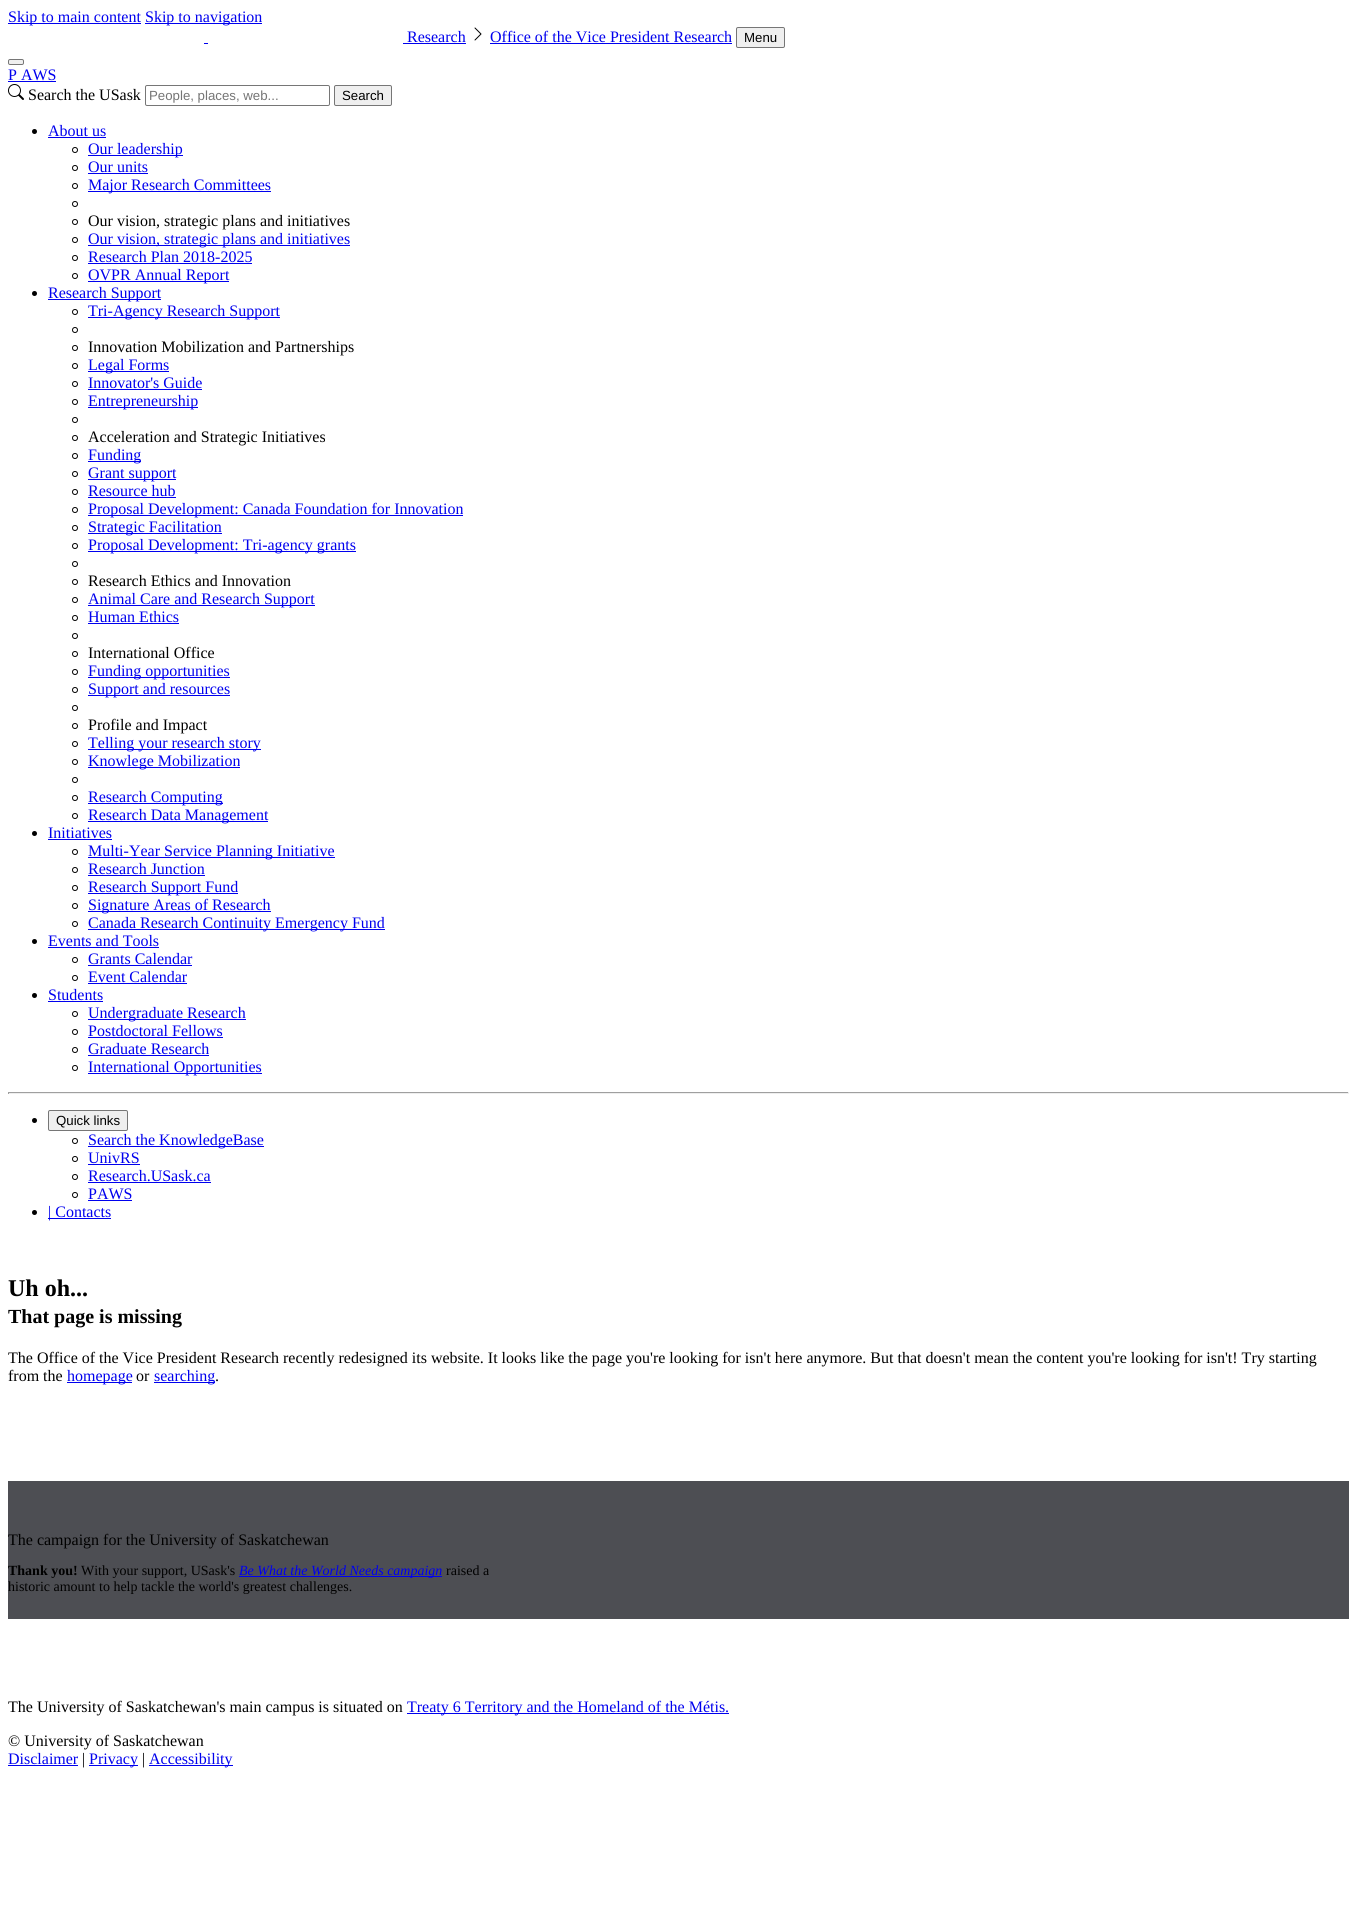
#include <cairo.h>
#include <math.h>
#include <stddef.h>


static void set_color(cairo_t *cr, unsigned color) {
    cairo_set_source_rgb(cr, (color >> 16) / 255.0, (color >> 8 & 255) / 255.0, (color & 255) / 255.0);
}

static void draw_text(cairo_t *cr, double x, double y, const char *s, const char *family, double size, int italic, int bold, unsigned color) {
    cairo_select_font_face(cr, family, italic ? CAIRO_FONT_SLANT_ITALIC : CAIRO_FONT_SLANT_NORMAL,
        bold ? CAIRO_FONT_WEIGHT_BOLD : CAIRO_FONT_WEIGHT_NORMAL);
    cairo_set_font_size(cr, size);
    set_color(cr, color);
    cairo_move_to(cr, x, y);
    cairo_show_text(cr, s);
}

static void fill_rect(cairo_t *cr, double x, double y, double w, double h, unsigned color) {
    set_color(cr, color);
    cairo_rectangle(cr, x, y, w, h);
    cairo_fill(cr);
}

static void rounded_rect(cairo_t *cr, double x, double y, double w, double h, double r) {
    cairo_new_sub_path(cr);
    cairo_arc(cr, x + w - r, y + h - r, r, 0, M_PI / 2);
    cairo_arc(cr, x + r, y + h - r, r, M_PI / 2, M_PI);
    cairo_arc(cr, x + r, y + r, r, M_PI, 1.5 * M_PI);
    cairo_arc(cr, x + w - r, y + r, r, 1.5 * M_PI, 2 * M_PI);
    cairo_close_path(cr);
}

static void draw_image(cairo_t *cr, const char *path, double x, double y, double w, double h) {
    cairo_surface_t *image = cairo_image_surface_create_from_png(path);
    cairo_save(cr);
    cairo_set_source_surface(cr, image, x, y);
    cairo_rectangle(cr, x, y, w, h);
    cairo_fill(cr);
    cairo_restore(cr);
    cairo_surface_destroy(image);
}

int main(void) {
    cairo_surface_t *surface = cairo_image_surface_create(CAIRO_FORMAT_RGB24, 1357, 1925);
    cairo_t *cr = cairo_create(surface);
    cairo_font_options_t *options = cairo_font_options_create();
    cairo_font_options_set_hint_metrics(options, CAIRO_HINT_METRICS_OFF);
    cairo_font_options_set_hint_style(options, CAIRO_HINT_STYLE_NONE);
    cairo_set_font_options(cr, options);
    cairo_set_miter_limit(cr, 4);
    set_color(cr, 0xFFFFFF);
    cairo_paint(cr);
    fill_rect(cr, 8, 23, 133, 1, 0x0000EE);
    draw_text(cr, 8, 22, "Skip to main content", "Liberation Serif", 16, 0, 0, 0x0000EE);
    fill_rect(cr, 145, 23, 117, 1, 0x0000EE);
    draw_text(cr, 145, 22, "Skip to navigation", "Liberation Serif", 16, 0, 0, 0x0000EE);
    draw_text(cr, 407, 42, "Research", "Liberation Serif", 16, 0, 0, 0x0000EE);
    draw_image(cr, "assets/img1.png", 474, 27, 8, 14);
    draw_text(cr, 490, 42, "Office of the Vice President Research", "Liberation Serif", 16, 0, 0, 0x0000EE);
    fill_rect(cr, 490, 43, 242, 1, 0x0000EE);
    set_color(cr, 0xEFEFEF);
    rounded_rect(cr, 736.5, 27.5, 48, 20, 1.5);
    cairo_fill_preserve(cr);
    set_color(cr, 0x767676);
    cairo_set_line_width(cr, 1);
    cairo_stroke(cr);
    draw_text(cr, 744, 42, "Menu", "Liberation Sans", 13.25, 0, 0, 0x000000);
    fill_rect(cr, 204, 43, 4, 1, 0x0000EE);
    fill_rect(cr, 403, 43, 63, 1, 0x0000EE);
    set_color(cr, 0xEFEFEF);
    rounded_rect(cr, 8.5, 59.5, 15, 5, 1.5);
    cairo_fill_preserve(cr);
    set_color(cr, 0x767676);
    cairo_stroke(cr);
    draw_text(cr, 8, 80, "P AWS", "Liberation Serif", 16, 0, 0, 0x0000EE);
    fill_rect(cr, 8, 81, 48, 1, 0x0000EE);
    draw_image(cr, "assets/img2.png", 8, 84, 16, 16);
    draw_text(cr, 28, 100, "Search the USask", "Liberation Serif", 16, 0, 0, 0x000000);
    rounded_rect(cr, 145.5, 85.5, 184, 20, 1.5);
    set_color(cr, 0x767676);
    cairo_stroke(cr);
    draw_text(cr, 149, 100, "People, places, web...", "Liberation Sans", 13.25, 0, 0, 0x757575);
    set_color(cr, 0xEFEFEF);
    rounded_rect(cr, 334.5, 85.5, 57, 20, 1.5);
    cairo_fill_preserve(cr);
    set_color(cr, 0x767676);
    cairo_stroke(cr);
    draw_text(cr, 342, 100, "Search", "Liberation Sans", 13.25, 0, 0, 0x000000);
    cairo_new_path(cr);
    cairo_arc(cr, 34.5, 131.5, 2.5, 0, 2 * M_PI);
    cairo_fill(cr);
    draw_text(cr, 48, 136, "About us", "Liberation Serif", 16, 0, 0, 0x0000EE);
    fill_rect(cr, 48, 137, 58, 1, 0x0000EE);
    cairo_new_path(cr);
    cairo_arc(cr, 75, 150, 2.5, 0, 2 * M_PI);
    set_color(cr, 0x000000);
    cairo_stroke(cr);
    fill_rect(cr, 88, 155, 95, 1, 0x0000EE);
    draw_text(cr, 88, 154, "Our leadership", "Liberation Serif", 16, 0, 0, 0x0000EE);
    cairo_new_path(cr);
    cairo_arc(cr, 75, 168, 2.5, 0, 2 * M_PI);
    set_color(cr, 0x000000);
    cairo_stroke(cr);
    draw_text(cr, 88, 172, "Our units", "Liberation Serif", 16, 0, 0, 0x0000EE);
    fill_rect(cr, 88, 173, 60, 1, 0x0000EE);
    cairo_new_path(cr);
    cairo_arc(cr, 75, 186, 2.5, 0, 2 * M_PI);
    set_color(cr, 0x000000);
    cairo_stroke(cr);
    fill_rect(cr, 88, 191, 183, 1, 0x0000EE);
    draw_text(cr, 88, 190, "Major Research Committees", "Liberation Serif", 16, 0, 0, 0x0000EE);
    cairo_new_path(cr);
    cairo_arc(cr, 75, 204, 2.5, 0, 2 * M_PI);
    set_color(cr, 0x000000);
    cairo_stroke(cr);
    cairo_arc(cr, 75, 222, 2.5, 0, 2 * M_PI);
    cairo_stroke(cr);
    draw_text(cr, 88, 226, "Our vision, strategic plans and initiatives", "Liberation Serif", 16, 0, 0, 0x000000);
    cairo_new_path(cr);
    cairo_arc(cr, 75, 240, 2.5, 0, 2 * M_PI);
    cairo_stroke(cr);
    fill_rect(cr, 88, 245, 262, 1, 0x0000EE);
    draw_text(cr, 88, 244, "Our vision, strategic plans and initiatives", "Liberation Serif", 16, 0, 0, 0x0000EE);
    cairo_new_path(cr);
    cairo_arc(cr, 75, 258, 2.5, 0, 2 * M_PI);
    set_color(cr, 0x000000);
    cairo_stroke(cr);
    draw_text(cr, 88, 262, "Research Plan 2018-2025", "Liberation Serif", 16, 0, 0, 0x0000EE);
    fill_rect(cr, 88, 263, 164, 1, 0x0000EE);
    cairo_new_path(cr);
    cairo_arc(cr, 75, 276, 2.5, 0, 2 * M_PI);
    set_color(cr, 0x000000);
    cairo_stroke(cr);
    fill_rect(cr, 88, 281, 141, 1, 0x0000EE);
    draw_text(cr, 88, 280, "OVPR Annual Report", "Liberation Serif", 16, 0, 0, 0x0000EE);
    set_color(cr, 0x000000);
    cairo_new_path(cr);
    cairo_arc(cr, 34.5, 293.5, 2.5, 0, 2 * M_PI);
    cairo_fill(cr);
    fill_rect(cr, 48, 299, 113, 1, 0x0000EE);
    draw_text(cr, 48, 298, "Research Support", "Liberation Serif", 16, 0, 0, 0x0000EE);
    cairo_new_path(cr);
    cairo_arc(cr, 75, 312, 2.5, 0, 2 * M_PI);
    set_color(cr, 0x000000);
    cairo_stroke(cr);
    fill_rect(cr, 88, 317, 192, 1, 0x0000EE);
    draw_text(cr, 88, 316, "Tri-Agency Research Support", "Liberation Serif", 16, 0, 0, 0x0000EE);
    cairo_new_path(cr);
    cairo_arc(cr, 75, 330, 2.5, 0, 2 * M_PI);
    set_color(cr, 0x000000);
    cairo_stroke(cr);
    cairo_arc(cr, 75, 348, 2.5, 0, 2 * M_PI);
    cairo_stroke(cr);
    draw_text(cr, 88, 352, "Innovation Mobilization and Partnerships", "Liberation Serif", 16, 0, 0, 0x000000);
    cairo_new_path(cr);
    cairo_arc(cr, 75, 366, 2.5, 0, 2 * M_PI);
    cairo_stroke(cr);
    fill_rect(cr, 88, 371, 81, 1, 0x0000EE);
    draw_text(cr, 88, 370, "Legal Forms", "Liberation Serif", 16, 0, 0, 0x0000EE);
    cairo_new_path(cr);
    cairo_arc(cr, 75, 384, 2.5, 0, 2 * M_PI);
    set_color(cr, 0x000000);
    cairo_stroke(cr);
    draw_text(cr, 88, 388, "Innovator's Guide", "Liberation Serif", 16, 0, 0, 0x0000EE);
    fill_rect(cr, 88, 389, 114, 1, 0x0000EE);
    cairo_new_path(cr);
    cairo_arc(cr, 75, 402, 2.5, 0, 2 * M_PI);
    set_color(cr, 0x000000);
    cairo_stroke(cr);
    fill_rect(cr, 88, 407, 110, 1, 0x0000EE);
    draw_text(cr, 88, 406, "Entrepreneurship", "Liberation Serif", 16, 0, 0, 0x0000EE);
    cairo_new_path(cr);
    cairo_arc(cr, 75, 420, 2.5, 0, 2 * M_PI);
    set_color(cr, 0x000000);
    cairo_stroke(cr);
    cairo_arc(cr, 75, 438, 2.5, 0, 2 * M_PI);
    cairo_stroke(cr);
    draw_text(cr, 88, 442, "Acceleration and Strategic Initiatives", "Liberation Serif", 16, 0, 0, 0x000000);
    cairo_new_path(cr);
    cairo_arc(cr, 75, 456, 2.5, 0, 2 * M_PI);
    cairo_stroke(cr);
    fill_rect(cr, 88, 461, 53, 1, 0x0000EE);
    draw_text(cr, 88, 460, "Funding", "Liberation Serif", 16, 0, 0, 0x0000EE);
    cairo_new_path(cr);
    cairo_arc(cr, 75, 474, 2.5, 0, 2 * M_PI);
    set_color(cr, 0x000000);
    cairo_stroke(cr);
    fill_rect(cr, 88, 479, 88, 1, 0x0000EE);
    draw_text(cr, 88, 478, "Grant support", "Liberation Serif", 16, 0, 0, 0x0000EE);
    cairo_new_path(cr);
    cairo_arc(cr, 75, 492, 2.5, 0, 2 * M_PI);
    set_color(cr, 0x000000);
    cairo_stroke(cr);
    draw_text(cr, 88, 496, "Resource hub", "Liberation Serif", 16, 0, 0, 0x0000EE);
    fill_rect(cr, 88, 497, 88, 1, 0x0000EE);
    cairo_new_path(cr);
    cairo_arc(cr, 75, 510, 2.5, 0, 2 * M_PI);
    set_color(cr, 0x000000);
    cairo_stroke(cr);
    fill_rect(cr, 88, 515, 375, 1, 0x0000EE);
    draw_text(cr, 88, 514, "Proposal Development: Canada Foundation for Innovation", "Liberation Serif", 16, 0, 0, 0x0000EE);
    cairo_new_path(cr);
    cairo_arc(cr, 75, 528, 2.5, 0, 2 * M_PI);
    set_color(cr, 0x000000);
    cairo_stroke(cr);
    fill_rect(cr, 88, 533, 134, 1, 0x0000EE);
    draw_text(cr, 88, 532, "Strategic Facilitation", "Liberation Serif", 16, 0, 0, 0x0000EE);
    cairo_new_path(cr);
    cairo_arc(cr, 75, 546, 2.5, 0, 2 * M_PI);
    set_color(cr, 0x000000);
    cairo_stroke(cr);
    fill_rect(cr, 88, 551, 268, 1, 0x0000EE);
    draw_text(cr, 88, 550, "Proposal Development: Tri-agency grants", "Liberation Serif", 16, 0, 0, 0x0000EE);
    cairo_new_path(cr);
    cairo_arc(cr, 75, 564, 2.5, 0, 2 * M_PI);
    set_color(cr, 0x000000);
    cairo_stroke(cr);
    cairo_arc(cr, 75, 582, 2.5, 0, 2 * M_PI);
    cairo_stroke(cr);
    draw_text(cr, 88, 586, "Research Ethics and Innovation", "Liberation Serif", 16, 0, 0, 0x000000);
    cairo_new_path(cr);
    cairo_arc(cr, 75, 600, 2.5, 0, 2 * M_PI);
    cairo_stroke(cr);
    fill_rect(cr, 88, 605, 227, 1, 0x0000EE);
    draw_text(cr, 88, 604, "Animal Care and Research Support", "Liberation Serif", 16, 0, 0, 0x0000EE);
    cairo_new_path(cr);
    cairo_arc(cr, 75, 618, 2.5, 0, 2 * M_PI);
    set_color(cr, 0x000000);
    cairo_stroke(cr);
    draw_text(cr, 88, 622, "Human Ethics", "Liberation Serif", 16, 0, 0, 0x0000EE);
    fill_rect(cr, 88, 623, 91, 1, 0x0000EE);
    cairo_new_path(cr);
    cairo_arc(cr, 75, 636, 2.5, 0, 2 * M_PI);
    set_color(cr, 0x000000);
    cairo_stroke(cr);
    cairo_arc(cr, 75, 654, 2.5, 0, 2 * M_PI);
    cairo_stroke(cr);
    draw_text(cr, 88, 658, "International Office", "Liberation Serif", 16, 0, 0, 0x000000);
    cairo_new_path(cr);
    cairo_arc(cr, 75, 672, 2.5, 0, 2 * M_PI);
    cairo_stroke(cr);
    fill_rect(cr, 88, 677, 142, 1, 0x0000EE);
    draw_text(cr, 88, 676, "Funding opportunities", "Liberation Serif", 16, 0, 0, 0x0000EE);
    cairo_new_path(cr);
    cairo_arc(cr, 75, 690, 2.5, 0, 2 * M_PI);
    set_color(cr, 0x000000);
    cairo_stroke(cr);
    fill_rect(cr, 88, 695, 142, 1, 0x0000EE);
    draw_text(cr, 88, 694, "Support and resources", "Liberation Serif", 16, 0, 0, 0x0000EE);
    cairo_new_path(cr);
    cairo_arc(cr, 75, 708, 2.5, 0, 2 * M_PI);
    set_color(cr, 0x000000);
    cairo_stroke(cr);
    cairo_arc(cr, 75, 726, 2.5, 0, 2 * M_PI);
    cairo_stroke(cr);
    draw_text(cr, 88, 730, "Profile and Impact", "Liberation Serif", 16, 0, 0, 0x000000);
    cairo_new_path(cr);
    cairo_arc(cr, 75, 744, 2.5, 0, 2 * M_PI);
    cairo_stroke(cr);
    fill_rect(cr, 88, 749, 173, 1, 0x0000EE);
    draw_text(cr, 88, 748, "Telling your research story", "Liberation Serif", 16, 0, 0, 0x0000EE);
    cairo_new_path(cr);
    cairo_arc(cr, 75, 762, 2.5, 0, 2 * M_PI);
    set_color(cr, 0x000000);
    cairo_stroke(cr);
    fill_rect(cr, 88, 767, 152, 1, 0x0000EE);
    draw_text(cr, 88, 766, "Knowlege Mobilization", "Liberation Serif", 16, 0, 0, 0x0000EE);
    cairo_new_path(cr);
    cairo_arc(cr, 75, 780, 2.5, 0, 2 * M_PI);
    set_color(cr, 0x000000);
    cairo_stroke(cr);
    cairo_arc(cr, 75, 798, 2.5, 0, 2 * M_PI);
    cairo_stroke(cr);
    fill_rect(cr, 88, 803, 135, 1, 0x0000EE);
    draw_text(cr, 88, 802, "Research Computing", "Liberation Serif", 16, 0, 0, 0x0000EE);
    cairo_new_path(cr);
    cairo_arc(cr, 75, 816, 2.5, 0, 2 * M_PI);
    set_color(cr, 0x000000);
    cairo_stroke(cr);
    fill_rect(cr, 88, 821, 180, 1, 0x0000EE);
    draw_text(cr, 88, 820, "Research Data Management", "Liberation Serif", 16, 0, 0, 0x0000EE);
    set_color(cr, 0x000000);
    cairo_new_path(cr);
    cairo_arc(cr, 34.5, 833.5, 2.5, 0, 2 * M_PI);
    cairo_fill(cr);
    draw_text(cr, 48, 838, "Initiatives", "Liberation Serif", 16, 0, 0, 0x0000EE);
    fill_rect(cr, 48, 839, 64, 1, 0x0000EE);
    cairo_new_path(cr);
    cairo_arc(cr, 75, 852, 2.5, 0, 2 * M_PI);
    set_color(cr, 0x000000);
    cairo_stroke(cr);
    fill_rect(cr, 88, 857, 247, 1, 0x0000EE);
    draw_text(cr, 88, 856, "Multi-Year Service Planning Initiative", "Liberation Serif", 16, 0, 0, 0x0000EE);
    cairo_new_path(cr);
    cairo_arc(cr, 75, 870, 2.5, 0, 2 * M_PI);
    set_color(cr, 0x000000);
    cairo_stroke(cr);
    draw_text(cr, 88, 874, "Research Junction", "Liberation Serif", 16, 0, 0, 0x0000EE);
    fill_rect(cr, 88, 875, 117, 1, 0x0000EE);
    cairo_new_path(cr);
    cairo_arc(cr, 75, 888, 2.5, 0, 2 * M_PI);
    set_color(cr, 0x000000);
    cairo_stroke(cr);
    fill_rect(cr, 88, 893, 150, 1, 0x0000EE);
    draw_text(cr, 88, 892, "Research Support Fund", "Liberation Serif", 16, 0, 0, 0x0000EE);
    cairo_new_path(cr);
    cairo_arc(cr, 75, 906, 2.5, 0, 2 * M_PI);
    set_color(cr, 0x000000);
    cairo_stroke(cr);
    fill_rect(cr, 88, 911, 183, 1, 0x0000EE);
    draw_text(cr, 88, 910, "Signature Areas of Research", "Liberation Serif", 16, 0, 0, 0x0000EE);
    cairo_new_path(cr);
    cairo_arc(cr, 75, 924, 2.5, 0, 2 * M_PI);
    set_color(cr, 0x000000);
    cairo_stroke(cr);
    fill_rect(cr, 88, 929, 297, 1, 0x0000EE);
    draw_text(cr, 88, 928, "Canada Research Continuity Emergency Fund", "Liberation Serif", 16, 0, 0, 0x0000EE);
    set_color(cr, 0x000000);
    cairo_new_path(cr);
    cairo_arc(cr, 34.5, 941.5, 2.5, 0, 2 * M_PI);
    cairo_fill(cr);
    draw_text(cr, 48, 946, "Events and Tools", "Liberation Serif", 16, 0, 0, 0x0000EE);
    fill_rect(cr, 48, 947, 111, 1, 0x0000EE);
    cairo_new_path(cr);
    cairo_arc(cr, 75, 960, 2.5, 0, 2 * M_PI);
    set_color(cr, 0x000000);
    cairo_stroke(cr);
    draw_text(cr, 88, 964, "Grants Calendar", "Liberation Serif", 16, 0, 0, 0x0000EE);
    fill_rect(cr, 88, 965, 104, 1, 0x0000EE);
    cairo_new_path(cr);
    cairo_arc(cr, 75, 978, 2.5, 0, 2 * M_PI);
    set_color(cr, 0x000000);
    cairo_stroke(cr);
    draw_text(cr, 88, 982, "Event Calendar", "Liberation Serif", 16, 0, 0, 0x0000EE);
    fill_rect(cr, 88, 983, 99, 1, 0x0000EE);
    set_color(cr, 0x000000);
    cairo_new_path(cr);
    cairo_arc(cr, 34.5, 995.5, 2.5, 0, 2 * M_PI);
    cairo_fill(cr);
    draw_text(cr, 48, 1000, "Students", "Liberation Serif", 16, 0, 0, 0x0000EE);
    fill_rect(cr, 48, 1001, 55, 1, 0x0000EE);
    cairo_new_path(cr);
    cairo_arc(cr, 75, 1014, 2.5, 0, 2 * M_PI);
    set_color(cr, 0x000000);
    cairo_stroke(cr);
    fill_rect(cr, 88, 1019, 158, 1, 0x0000EE);
    draw_text(cr, 88, 1018, "Undergraduate Research", "Liberation Serif", 16, 0, 0, 0x0000EE);
    cairo_new_path(cr);
    cairo_arc(cr, 75, 1032, 2.5, 0, 2 * M_PI);
    set_color(cr, 0x000000);
    cairo_stroke(cr);
    draw_text(cr, 88, 1036, "Postdoctoral Fellows", "Liberation Serif", 16, 0, 0, 0x0000EE);
    fill_rect(cr, 88, 1037, 135, 1, 0x0000EE);
    cairo_new_path(cr);
    cairo_arc(cr, 75, 1050, 2.5, 0, 2 * M_PI);
    set_color(cr, 0x000000);
    cairo_stroke(cr);
    draw_text(cr, 88, 1054, "Graduate Research", "Liberation Serif", 16, 0, 0, 0x0000EE);
    fill_rect(cr, 88, 1055, 121, 1, 0x0000EE);
    cairo_new_path(cr);
    cairo_arc(cr, 75, 1068, 2.5, 0, 2 * M_PI);
    set_color(cr, 0x000000);
    cairo_stroke(cr);
    fill_rect(cr, 88, 1073, 174, 1, 0x0000EE);
    draw_text(cr, 88, 1072, "International Opportunities", "Liberation Serif", 16, 0, 0, 0x0000EE);
    fill_rect(cr, 8, 1092, 1341, 1, 0x9F9F9F);
    fill_rect(cr, 1348, 1092, 1, 2, 0xEEEEEE);
    fill_rect(cr, 8, 1093, 1341, 1, 0xEEEEEE);
    fill_rect(cr, 8, 1092, 1, 2, 0x9F9F9F);
    set_color(cr, 0x000000);
    cairo_new_path(cr);
    cairo_arc(cr, 34.5, 1120.5, 2.5, 0, 2 * M_PI);
    cairo_fill(cr);
    set_color(cr, 0xEFEFEF);
    rounded_rect(cr, 48.5, 1110.5, 79, 20, 1.5);
    cairo_fill_preserve(cr);
    set_color(cr, 0x767676);
    cairo_stroke(cr);
    draw_text(cr, 56, 1125, "Quick links", "Liberation Sans", 13.25, 0, 0, 0x000000);
    cairo_new_path(cr);
    cairo_arc(cr, 75, 1141, 2.5, 0, 2 * M_PI);
    cairo_stroke(cr);
    fill_rect(cr, 88, 1146, 176, 1, 0x0000EE);
    draw_text(cr, 88, 1145, "Search the KnowledgeBase", "Liberation Serif", 16, 0, 0, 0x0000EE);
    cairo_new_path(cr);
    cairo_arc(cr, 75, 1159, 2.5, 0, 2 * M_PI);
    set_color(cr, 0x000000);
    cairo_stroke(cr);
    draw_text(cr, 88, 1163, "UnivRS", "Liberation Serif", 16, 0, 0, 0x0000EE);
    fill_rect(cr, 88, 1164, 52, 1, 0x0000EE);
    cairo_new_path(cr);
    cairo_arc(cr, 75, 1177, 2.5, 0, 2 * M_PI);
    set_color(cr, 0x000000);
    cairo_stroke(cr);
    draw_text(cr, 88, 1181, "Research.USask.ca", "Liberation Serif", 16, 0, 0, 0x0000EE);
    fill_rect(cr, 88, 1182, 123, 1, 0x0000EE);
    cairo_new_path(cr);
    cairo_arc(cr, 75, 1195, 2.5, 0, 2 * M_PI);
    set_color(cr, 0x000000);
    cairo_stroke(cr);
    draw_text(cr, 88, 1199, "PAWS", "Liberation Serif", 16, 0, 0, 0x0000EE);
    fill_rect(cr, 88, 1200, 44, 1, 0x0000EE);
    set_color(cr, 0x000000);
    cairo_new_path(cr);
    cairo_arc(cr, 34.5, 1212.5, 2.5, 0, 2 * M_PI);
    cairo_fill(cr);
    fill_rect(cr, 48, 1218, 63, 1, 0x0000EE);
    draw_text(cr, 48, 1217, "| Contacts", "Liberation Serif", 16, 0, 0, 0x0000EE);
    draw_text(cr, 8, 1296, "Uh oh...", "Liberation Serif", 24, 0, 1, 0x000000);
    draw_text(cr, 8, 1323, "That page is missing", "Liberation Serif", 20, 0, 1, 0x000000);
    draw_text(cr, 8, 1363, "The Office of the Vice President Research recently redesigned its website. It looks like the page you're looking for isn't here anymore. But that doesn't mean the content you're looking for isn't! Try starting", "Liberation Serif", 16, 0, 0, 0x000000);
    draw_text(cr, 8, 1381, "from the", "Liberation Serif", 16, 0, 0, 0x000000);
    fill_rect(cr, 67, 1382, 65, 1, 0x0000EE);
    draw_text(cr, 67, 1381, "homepage", "Liberation Serif", 16, 0, 0, 0x0000EE);
    draw_text(cr, 136, 1381, "or", "Liberation Serif", 16, 0, 0, 0x000000);
    fill_rect(cr, 154, 1382, 61, 1, 0x0000EE);
    draw_text(cr, 154, 1381, "searching", "Liberation Serif", 16, 0, 0, 0x0000EE);
    draw_text(cr, 215, 1381, ".", "Liberation Serif", 16, 0, 0, 0x000000);
    fill_rect(cr, 8, 1481, 1341, 138, 0x4D4E53);
    draw_text(cr, 8, 1545, "The campaign for the University of Saskatchewan", "Liberation Serif", 16, 0, 0, 0x000000);
    draw_text(cr, 8, 1575, "Thank you!", "Liberation Serif", 14, 0, 1, 0x000000);
    draw_text(cr, 81, 1575, "With your support, USask's", "Liberation Serif", 14, 0, 0, 0x000000);
    fill_rect(cr, 239, 1576, 203, 1, 0x0000EE);
    draw_text(cr, 239, 1575, "Be What the World Needs campaign", "Liberation Serif", 14, 1, 0, 0x0000EE);
    draw_text(cr, 446, 1575, "raised a", "Liberation Serif", 14, 0, 0, 0x000000);
    draw_text(cr, 8, 1591, "historic amount to help tackle the world's greatest challenges.", "Liberation Serif", 14, 0, 0, 0x000000);
    draw_text(cr, 8, 1712, "The University of Saskatchewan's main campus is situated on", "Liberation Serif", 16, 0, 0, 0x000000);
    fill_rect(cr, 407, 1713, 322, 1, 0x0000EE);
    draw_text(cr, 407, 1712, "Treaty 6 Territory and the Homeland of the Métis.", "Liberation Serif", 16, 0, 0, 0x0000EE);
    draw_text(cr, 8, 1746, "© University of Saskatchewan", "Liberation Serif", 16, 0, 0, 0x000000);
    draw_text(cr, 8, 1764, "Disclaimer", "Liberation Serif", 16, 0, 0, 0x0000EE);
    fill_rect(cr, 8, 1765, 70, 1, 0x0000EE);
    draw_text(cr, 82, 1764, "|", "Liberation Serif", 16, 0, 0, 0x000000);
    fill_rect(cr, 89, 1765, 49, 1, 0x0000EE);
    draw_text(cr, 89, 1764, "Privacy", "Liberation Serif", 16, 0, 0, 0x0000EE);
    draw_text(cr, 142, 1764, "|", "Liberation Serif", 16, 0, 0, 0x000000);
    fill_rect(cr, 149, 1765, 84, 1, 0x0000EE);
    draw_text(cr, 149, 1764, "Accessibility", "Liberation Serif", 16, 0, 0, 0x0000EE);
    cairo_surface_write_to_png(surface, "output.png");
    cairo_font_options_destroy(options);
    cairo_destroy(cr);
    cairo_surface_destroy(surface);
    return 0;
}
